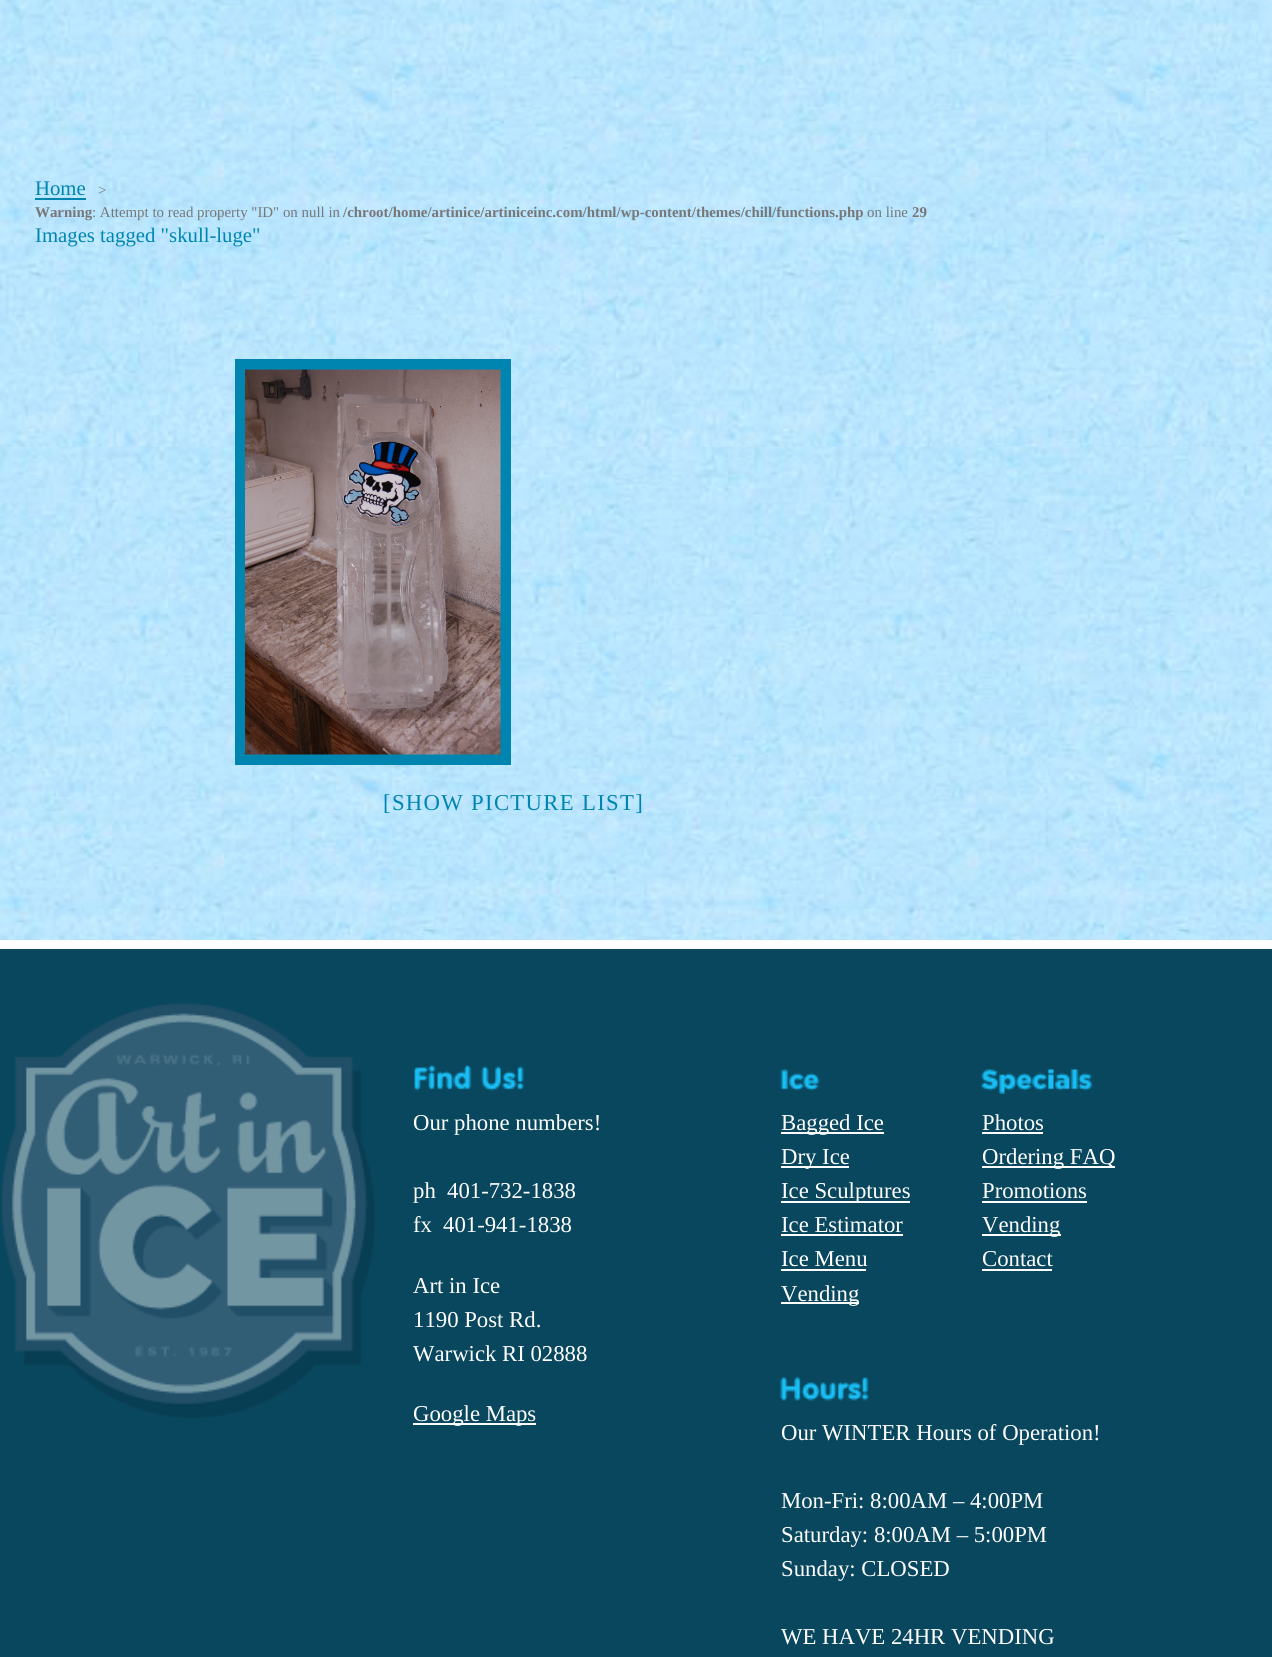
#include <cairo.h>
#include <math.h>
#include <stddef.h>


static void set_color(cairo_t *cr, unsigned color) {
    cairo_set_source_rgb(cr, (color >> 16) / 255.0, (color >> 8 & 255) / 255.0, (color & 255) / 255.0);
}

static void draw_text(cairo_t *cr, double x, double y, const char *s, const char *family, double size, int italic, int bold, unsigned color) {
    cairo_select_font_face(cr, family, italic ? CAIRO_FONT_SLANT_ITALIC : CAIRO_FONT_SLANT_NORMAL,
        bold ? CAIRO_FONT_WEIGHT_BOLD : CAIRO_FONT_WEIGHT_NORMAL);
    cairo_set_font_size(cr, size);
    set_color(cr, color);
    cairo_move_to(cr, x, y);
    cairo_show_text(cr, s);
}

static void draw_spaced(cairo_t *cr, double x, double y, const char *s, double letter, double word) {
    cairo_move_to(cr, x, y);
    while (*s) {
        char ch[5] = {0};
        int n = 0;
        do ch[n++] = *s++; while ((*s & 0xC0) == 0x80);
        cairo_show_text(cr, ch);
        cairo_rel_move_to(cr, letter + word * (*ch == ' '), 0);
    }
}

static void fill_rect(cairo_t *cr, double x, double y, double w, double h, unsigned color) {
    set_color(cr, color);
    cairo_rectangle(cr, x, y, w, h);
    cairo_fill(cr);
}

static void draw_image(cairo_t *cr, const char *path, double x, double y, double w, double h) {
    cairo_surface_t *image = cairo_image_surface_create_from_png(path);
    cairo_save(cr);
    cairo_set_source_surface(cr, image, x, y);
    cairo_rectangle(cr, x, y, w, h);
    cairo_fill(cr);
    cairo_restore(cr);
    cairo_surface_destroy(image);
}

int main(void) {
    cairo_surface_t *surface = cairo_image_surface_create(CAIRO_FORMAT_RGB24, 1272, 1657);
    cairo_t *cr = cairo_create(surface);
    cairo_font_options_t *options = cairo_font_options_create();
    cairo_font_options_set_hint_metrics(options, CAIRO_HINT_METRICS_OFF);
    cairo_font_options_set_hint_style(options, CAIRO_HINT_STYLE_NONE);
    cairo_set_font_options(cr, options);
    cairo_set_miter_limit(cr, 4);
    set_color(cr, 0xFFFFFF);
    cairo_paint(cr);
    draw_image(cr, "assets/img1.png", 0, 0, 1272, 940);
    draw_text(cr, 35, 195, "Home", "Liberation Serif", 20.75, 0, 0, 0x0085B0);
    fill_rect(cr, 35, 198, 51, 2, 0x0085B0);
    draw_text(cr, 98, 195, ">", "Liberation Serif", 14.9, 0, 0, 0x777777);
    draw_text(cr, 35, 217, "Warning", "Liberation Serif", 14.9, 0, 1, 0x777777);
    draw_text(cr, 92, 217, ": Attempt to read property \"ID\" on null in", "Liberation Serif", 14.9, 0, 0, 0x777777);
    draw_text(cr, 343, 217, "/chroot/home/artinice/artiniceinc.com/html/wp-content/themes/chill/functions.php", "Liberation Serif", 14.9, 0, 1, 0x777777);
    draw_text(cr, 867, 217, "on line", "Liberation Serif", 14.9, 0, 0, 0x777777);
    draw_text(cr, 912, 217, "29", "Liberation Serif", 14.9, 0, 1, 0x777777);
    draw_text(cr, 35, 242, "Images tagged \"skull-luge\"", "Liberation Serif", 20.75, 0, 0, 0x0085B0);
    cairo_rectangle(cr, 240.5, 364.5, 265, 395);
    cairo_set_line_width(cr, 11);
    cairo_stroke(cr);
    draw_image(cr, "assets/img2.png", 245, 369, 256, 386);
    cairo_set_font_size(cr, 22.75);
    draw_spaced(cr, 383, 810, "[SHOW PICTURE LIST]", 1.3, 0);
    fill_rect(cr, 0, 949, 1272, 708, 0x09475E);
    draw_image(cr, "assets/img3.png", 1, 1003, 374, 415);
    draw_image(cr, "assets/img4.png", 414, 1065, 110, 26);
    draw_text(cr, 413, 1130, "Our phone numbers!", "Liberation Serif", 22.75, 0, 0, 0xFFFFFF);
    draw_text(cr, 413, 1198, "ph", "Liberation Serif", 22.75, 0, 0, 0xFFFFFF);
    draw_text(cr, 447, 1198, "401-732-1838", "Liberation Serif", 22.75, 0, 0, 0xFFFFFF);
    draw_text(cr, 413, 1232, "fx", "Liberation Serif", 22.75, 0, 0, 0xFFFFFF);
    draw_text(cr, 443, 1232, "401-941-1838", "Liberation Serif", 22.75, 0, 0, 0xFFFFFF);
    draw_text(cr, 413, 1293, "Art in Ice", "Liberation Serif", 22.75, 0, 0, 0xFFFFFF);
    draw_text(cr, 413, 1327, "1190 Post Rd.", "Liberation Serif", 22.75, 0, 0, 0xFFFFFF);
    draw_text(cr, 413, 1361, "Warwick RI 02888", "Liberation Serif", 22.75, 0, 0, 0xFFFFFF);
    fill_rect(cr, 413, 1423, 123, 2, 0xFFFFFF);
    draw_text(cr, 413, 1421, "Google Maps", "Liberation Serif", 22.75, 0, 0, 0xFFFFFF);
    draw_image(cr, "assets/img5.png", 780, 1069, 40, 22);
    fill_rect(cr, 781, 1132, 103, 2, 0xFFFFFF);
    draw_text(cr, 781, 1130, "Bagged Ice", "Liberation Serif", 22.75, 0, 0, 0xFFFFFF);
    fill_rect(cr, 781, 1166, 68, 2, 0xFFFFFF);
    draw_text(cr, 781, 1164, "Dry Ice", "Liberation Serif", 22.75, 0, 0, 0xFFFFFF);
    fill_rect(cr, 781, 1201, 129, 2, 0xFFFFFF);
    draw_text(cr, 781, 1198, "Ice Sculptures", "Liberation Serif", 22.75, 0, 0, 0xFFFFFF);
    draw_text(cr, 781, 1232, "Ice Estimator", "Liberation Serif", 22.75, 0, 0, 0xFFFFFF);
    fill_rect(cr, 781, 1234, 122, 2, 0xFFFFFF);
    draw_text(cr, 781, 1266, "Ice Menu", "Liberation Serif", 22.75, 0, 0, 0xFFFFFF);
    fill_rect(cr, 781, 1269, 85, 2, 0xFFFFFF);
    fill_rect(cr, 781, 1302, 78, 2, 0xFFFFFF);
    draw_text(cr, 781, 1301, "Vending", "Liberation Serif", 22.75, 0, 0, 0xFFFFFF);
    draw_image(cr, "assets/img6.png", 981, 1069, 112, 25);
    draw_text(cr, 982, 1130, "Photos", "Liberation Serif", 22.75, 0, 0, 0xFFFFFF);
    fill_rect(cr, 982, 1132, 61, 2, 0xFFFFFF);
    fill_rect(cr, 982, 1166, 133, 2, 0xFFFFFF);
    draw_text(cr, 982, 1164, "Ordering FAQ", "Liberation Serif", 22.75, 0, 0, 0xFFFFFF);
    draw_text(cr, 982, 1198, "Promotions", "Liberation Serif", 22.75, 0, 0, 0xFFFFFF);
    fill_rect(cr, 982, 1201, 105, 2, 0xFFFFFF);
    fill_rect(cr, 982, 1234, 79, 2, 0xFFFFFF);
    draw_text(cr, 982, 1232, "Vending", "Liberation Serif", 22.75, 0, 0, 0xFFFFFF);
    draw_text(cr, 982, 1266, "Contact", "Liberation Serif", 22.75, 0, 0, 0xFFFFFF);
    fill_rect(cr, 982, 1269, 70, 2, 0xFFFFFF);
    draw_image(cr, "assets/img7.png", 780, 1377, 89, 24);
    draw_text(cr, 781, 1440, "Our WINTER Hours of Operation!", "Liberation Serif", 22.75, 0, 0, 0xFFFFFF);
    draw_text(cr, 781, 1508, "Mon-Fri: 8:00AM – 4:00PM", "Liberation Serif", 22.75, 0, 0, 0xFFFFFF);
    draw_text(cr, 781, 1542, "Saturday: 8:00AM – 5:00PM", "Liberation Serif", 22.75, 0, 0, 0xFFFFFF);
    draw_text(cr, 781, 1576, "Sunday: CLOSED", "Liberation Serif", 22.75, 0, 0, 0xFFFFFF);
    draw_text(cr, 781, 1644, "WE HAVE 24HR VENDING", "Liberation Serif", 22.75, 0, 0, 0xFFFFFF);
    cairo_surface_write_to_png(surface, "output.png");
    cairo_font_options_destroy(options);
    cairo_destroy(cr);
    cairo_surface_destroy(surface);
    return 0;
}
